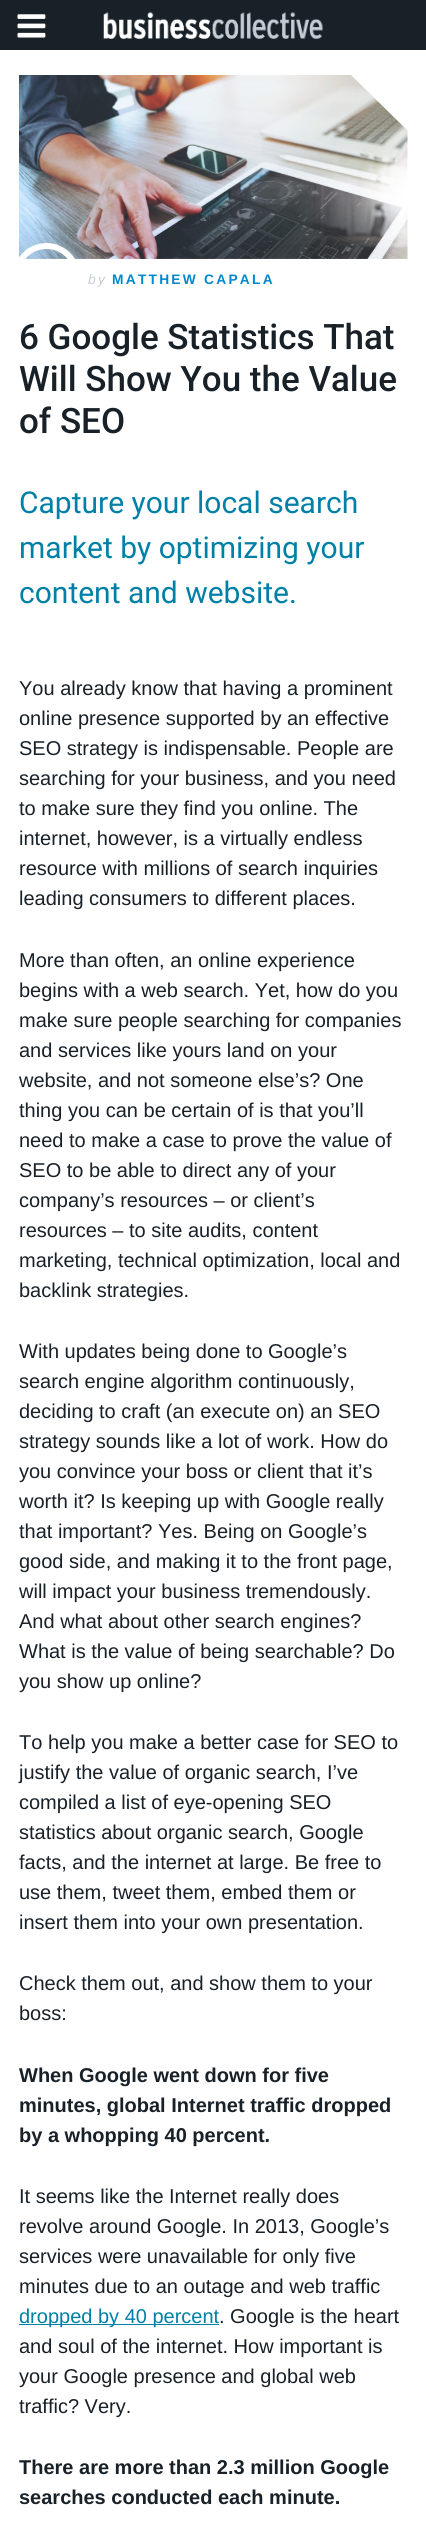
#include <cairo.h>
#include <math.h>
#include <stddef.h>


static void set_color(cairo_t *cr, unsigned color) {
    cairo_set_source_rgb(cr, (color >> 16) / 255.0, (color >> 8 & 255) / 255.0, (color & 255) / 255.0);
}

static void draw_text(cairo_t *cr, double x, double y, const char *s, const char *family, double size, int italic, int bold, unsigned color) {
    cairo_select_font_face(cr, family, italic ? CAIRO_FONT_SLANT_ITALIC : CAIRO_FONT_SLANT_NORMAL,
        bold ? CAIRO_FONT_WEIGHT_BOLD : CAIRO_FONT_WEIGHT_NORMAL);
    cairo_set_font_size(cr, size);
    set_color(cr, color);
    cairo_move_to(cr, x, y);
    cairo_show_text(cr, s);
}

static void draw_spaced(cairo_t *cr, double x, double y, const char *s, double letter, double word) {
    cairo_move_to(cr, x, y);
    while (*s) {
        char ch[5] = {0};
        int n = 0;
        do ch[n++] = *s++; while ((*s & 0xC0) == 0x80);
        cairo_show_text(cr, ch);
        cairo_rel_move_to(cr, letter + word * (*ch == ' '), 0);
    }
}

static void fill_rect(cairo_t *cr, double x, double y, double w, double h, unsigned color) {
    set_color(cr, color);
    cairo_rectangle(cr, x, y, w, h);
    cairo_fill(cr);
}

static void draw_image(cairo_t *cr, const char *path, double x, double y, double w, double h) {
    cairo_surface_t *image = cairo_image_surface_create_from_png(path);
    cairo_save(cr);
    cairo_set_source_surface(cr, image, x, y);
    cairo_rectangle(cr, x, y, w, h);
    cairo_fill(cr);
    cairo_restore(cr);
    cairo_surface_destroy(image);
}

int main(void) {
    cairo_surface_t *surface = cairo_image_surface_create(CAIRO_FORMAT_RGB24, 426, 2521);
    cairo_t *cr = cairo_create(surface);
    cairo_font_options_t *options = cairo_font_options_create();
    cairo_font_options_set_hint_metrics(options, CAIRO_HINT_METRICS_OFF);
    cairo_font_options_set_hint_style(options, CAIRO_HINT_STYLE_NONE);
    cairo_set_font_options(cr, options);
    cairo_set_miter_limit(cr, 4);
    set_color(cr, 0xFFFFFF);
    cairo_paint(cr);
    fill_rect(cr, 0, 0, 426, 50, 0x182028);
    draw_image(cr, "assets/img1.png", 17, 14, 29, 24);
    draw_image(cr, "assets/img2.png", 103, 12, 220, 27);
    draw_image(cr, "assets/img3.png", 19, 75, 389, 184);
    set_color(cr, 0xFFFFFF);
    cairo_new_path(cr);
    cairo_move_to(cr, 351, 75);
    cairo_line_to(cr, 408, 75);
    cairo_line_to(cr, 408, 131);
    cairo_close_path(cr);
    cairo_fill(cr);
    cairo_arc(cr, 46.5, 276.5, 30.5, 0, 2 * M_PI);
    cairo_set_line_width(cr, 6);
    cairo_stroke(cr);
    cairo_select_font_face(cr, "Liberation Sans", CAIRO_FONT_SLANT_ITALIC, CAIRO_FONT_WEIGHT_NORMAL);
    cairo_set_font_size(cr, 13.75);
    set_color(cr, 0xC4CDD6);
    draw_spaced(cr, 88, 284, "by", 2.25, 0);
    cairo_select_font_face(cr, "Liberation Sans", CAIRO_FONT_SLANT_NORMAL, CAIRO_FONT_WEIGHT_BOLD);
    set_color(cr, 0x0088CC);
    draw_spaced(cr, 112, 284, "MATTHEW CAPALA", 2.25, 0);
    draw_text(cr, 19, 349, "6 Google Statistics That", "Roboto Medium", 35, 0, 0, 0x182028);
    draw_text(cr, 19, 391, "Will Show You the Value", "Roboto Medium", 35, 0, 0, 0x182028);
    draw_text(cr, 19, 433, "of SEO", "Roboto Medium", 35, 0, 0, 0x182028);
    draw_text(cr, 19, 513, "Capture your local search", "Roboto", 30, 0, 0, 0x0080A7);
    draw_text(cr, 19, 558, "market by optimizing your", "Roboto", 30, 0, 0, 0x0080A7);
    draw_text(cr, 19, 603, "content and website.", "Roboto", 30, 0, 0, 0x0080A7);
    draw_text(cr, 19, 695, "You already know that having a prominent", "Liberation Sans", 20, 0, 0, 0x182028);
    draw_text(cr, 19, 725, "online presence supported by an effective", "Liberation Sans", 20, 0, 0, 0x182028);
    draw_text(cr, 19, 755, "SEO strategy is indispensable. People are", "Liberation Sans", 20, 0, 0, 0x182028);
    draw_text(cr, 19, 785, "searching for your business, and you need", "Liberation Sans", 20, 0, 0, 0x182028);
    draw_text(cr, 19, 815, "to make sure they find you online. The", "Liberation Sans", 20, 0, 0, 0x182028);
    draw_text(cr, 19, 845, "internet, however, is a virtually endless", "Liberation Sans", 20, 0, 0, 0x182028);
    draw_text(cr, 19, 875, "resource with millions of search inquiries", "Liberation Sans", 20, 0, 0, 0x182028);
    draw_text(cr, 19, 905, "leading consumers to different places.", "Liberation Sans", 20, 0, 0, 0x182028);
    draw_text(cr, 19, 967, "More than often, an online experience", "Liberation Sans", 20, 0, 0, 0x182028);
    draw_text(cr, 19, 997, "begins with a web search. Yet, how do you", "Liberation Sans", 20, 0, 0, 0x182028);
    draw_text(cr, 19, 1027, "make sure people searching for companies", "Liberation Sans", 20, 0, 0, 0x182028);
    draw_text(cr, 19, 1057, "and services like yours land on your", "Liberation Sans", 20, 0, 0, 0x182028);
    draw_text(cr, 19, 1087, "website, and not someone else’s? One", "Liberation Sans", 20, 0, 0, 0x182028);
    draw_text(cr, 19, 1117, "thing you can be certain of is that you’ll", "Liberation Sans", 20, 0, 0, 0x182028);
    draw_text(cr, 19, 1147, "need to make a case to prove the value of", "Liberation Sans", 20, 0, 0, 0x182028);
    draw_text(cr, 19, 1177, "SEO to be able to direct any of your", "Liberation Sans", 20, 0, 0, 0x182028);
    draw_text(cr, 19, 1207, "company’s resources – or client’s", "Liberation Sans", 20, 0, 0, 0x182028);
    draw_text(cr, 19, 1237, "resources – to site audits, content", "Liberation Sans", 20, 0, 0, 0x182028);
    draw_text(cr, 19, 1267, "marketing, technical optimization, local and", "Liberation Sans", 20, 0, 0, 0x182028);
    draw_text(cr, 19, 1297, "backlink strategies.", "Liberation Sans", 20, 0, 0, 0x182028);
    draw_text(cr, 19, 1358, "With updates being done to Google’s", "Liberation Sans", 20, 0, 0, 0x182028);
    draw_text(cr, 19, 1388, "search engine algorithm continuously,", "Liberation Sans", 20, 0, 0, 0x182028);
    draw_text(cr, 19, 1418, "deciding to craft (an execute on) an SEO", "Liberation Sans", 20, 0, 0, 0x182028);
    draw_text(cr, 19, 1448, "strategy sounds like a lot of work. How do", "Liberation Sans", 20, 0, 0, 0x182028);
    draw_text(cr, 19, 1478, "you convince your boss or client that it’s", "Liberation Sans", 20, 0, 0, 0x182028);
    draw_text(cr, 19, 1508, "worth it? Is keeping up with Google really", "Liberation Sans", 20, 0, 0, 0x182028);
    draw_text(cr, 19, 1538, "that important? Yes. Being on Google’s", "Liberation Sans", 20, 0, 0, 0x182028);
    draw_text(cr, 19, 1568, "good side, and making it to the front page,", "Liberation Sans", 20, 0, 0, 0x182028);
    draw_text(cr, 19, 1598, "will impact your business tremendously.", "Liberation Sans", 20, 0, 0, 0x182028);
    draw_text(cr, 19, 1628, "And what about other search engines?", "Liberation Sans", 20, 0, 0, 0x182028);
    draw_text(cr, 19, 1658, "What is the value of being searchable? Do", "Liberation Sans", 20, 0, 0, 0x182028);
    draw_text(cr, 19, 1688, "you show up online?", "Liberation Sans", 20, 0, 0, 0x182028);
    draw_text(cr, 19, 1749, "To help you make a better case for SEO to", "Liberation Sans", 20, 0, 0, 0x182028);
    draw_text(cr, 19, 1779, "justify the value of organic search, I’ve", "Liberation Sans", 20, 0, 0, 0x182028);
    draw_text(cr, 19, 1809, "compiled a list of eye-opening SEO", "Liberation Sans", 20, 0, 0, 0x182028);
    draw_text(cr, 19, 1839, "statistics about organic search, Google", "Liberation Sans", 20, 0, 0, 0x182028);
    draw_text(cr, 19, 1869, "facts, and the internet at large. Be free to", "Liberation Sans", 20, 0, 0, 0x182028);
    draw_text(cr, 19, 1899, "use them, tweet them, embed them or", "Liberation Sans", 20, 0, 0, 0x182028);
    draw_text(cr, 19, 1929, "insert them into your own presentation.", "Liberation Sans", 20, 0, 0, 0x182028);
    draw_text(cr, 19, 1990, "Check them out, and show them to your", "Liberation Sans", 20, 0, 0, 0x182028);
    draw_text(cr, 19, 2020, "boss:", "Liberation Sans", 20, 0, 0, 0x182028);
    draw_text(cr, 19, 2082, "When Google went down for five", "Liberation Sans", 20, 0, 1, 0x182028);
    draw_text(cr, 19, 2112, "minutes, global Internet traffic dropped", "Liberation Sans", 20, 0, 1, 0x182028);
    draw_text(cr, 19, 2142, "by a whopping 40 percent.", "Liberation Sans", 20, 0, 1, 0x182028);
    draw_text(cr, 19, 2203, "It seems like the Internet really does", "Liberation Sans", 20, 0, 0, 0x182028);
    draw_text(cr, 19, 2233, "revolve around Google. In 2013, Google’s", "Liberation Sans", 20, 0, 0, 0x182028);
    draw_text(cr, 19, 2263, "services were unavailable for only five", "Liberation Sans", 20, 0, 0, 0x182028);
    draw_text(cr, 19, 2293, "minutes due to an outage and web traffic", "Liberation Sans", 20, 0, 0, 0x182028);
    fill_rect(cr, 19, 2324, 200, 1, 0x0080A7);
    draw_text(cr, 19, 2323, "dropped by 40 percent", "Liberation Sans", 20, 0, 0, 0x0080A7);
    draw_text(cr, 219, 2323, ". Google is the heart", "Liberation Sans", 20, 0, 0, 0x182028);
    draw_text(cr, 19, 2353, "and soul of the internet. How important is", "Liberation Sans", 20, 0, 0, 0x182028);
    draw_text(cr, 19, 2383, "your Google presence and global web", "Liberation Sans", 20, 0, 0, 0x182028);
    draw_text(cr, 19, 2413, "traffic? Very.", "Liberation Sans", 20, 0, 0, 0x182028);
    draw_text(cr, 19, 2474, "There are more than 2.3 million Google", "Liberation Sans", 20, 0, 1, 0x182028);
    draw_text(cr, 19, 2504, "searches conducted each minute.", "Liberation Sans", 20, 0, 1, 0x182028);
    cairo_surface_write_to_png(surface, "output.png");
    cairo_font_options_destroy(options);
    cairo_destroy(cr);
    cairo_surface_destroy(surface);
    return 0;
}
